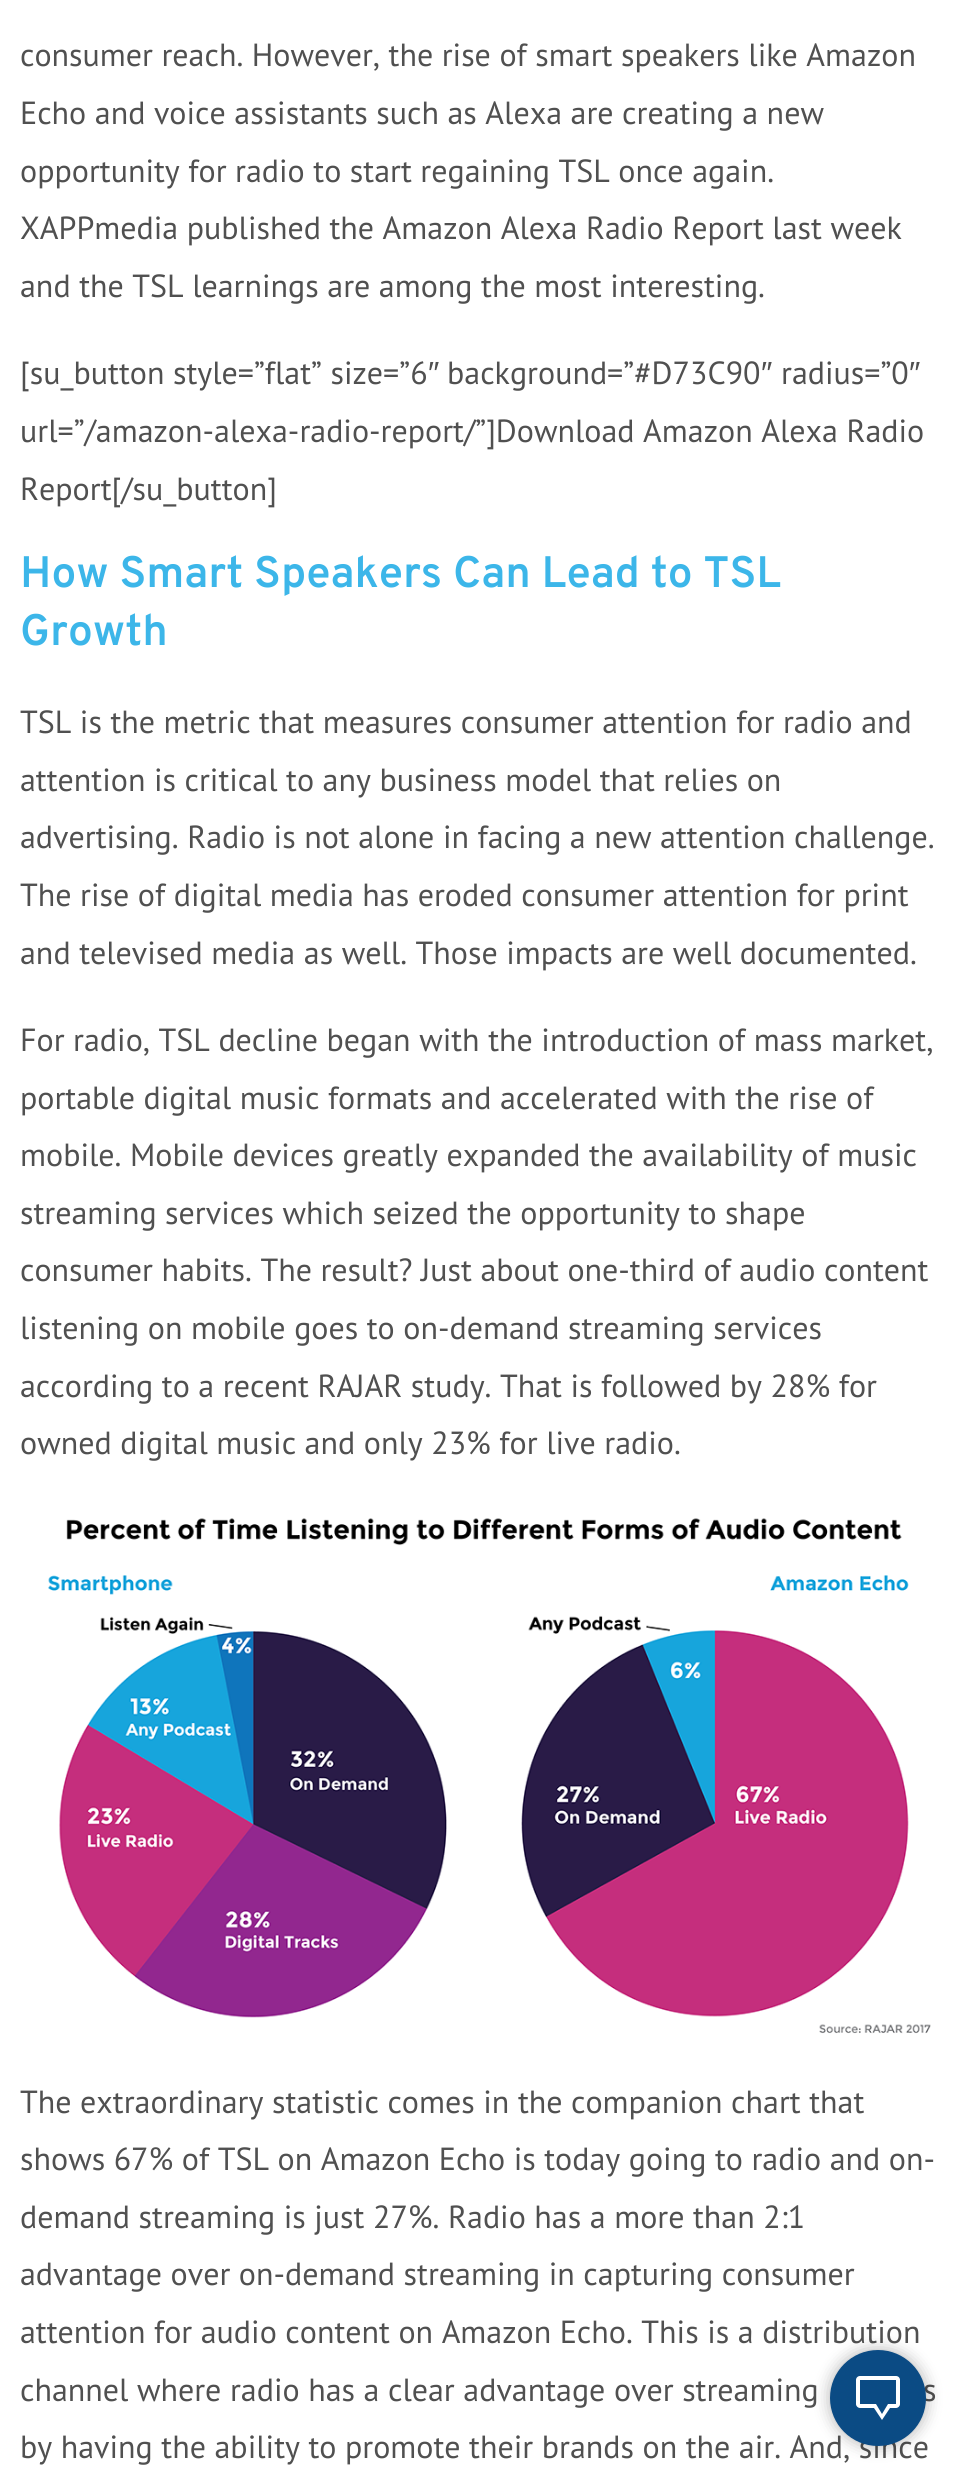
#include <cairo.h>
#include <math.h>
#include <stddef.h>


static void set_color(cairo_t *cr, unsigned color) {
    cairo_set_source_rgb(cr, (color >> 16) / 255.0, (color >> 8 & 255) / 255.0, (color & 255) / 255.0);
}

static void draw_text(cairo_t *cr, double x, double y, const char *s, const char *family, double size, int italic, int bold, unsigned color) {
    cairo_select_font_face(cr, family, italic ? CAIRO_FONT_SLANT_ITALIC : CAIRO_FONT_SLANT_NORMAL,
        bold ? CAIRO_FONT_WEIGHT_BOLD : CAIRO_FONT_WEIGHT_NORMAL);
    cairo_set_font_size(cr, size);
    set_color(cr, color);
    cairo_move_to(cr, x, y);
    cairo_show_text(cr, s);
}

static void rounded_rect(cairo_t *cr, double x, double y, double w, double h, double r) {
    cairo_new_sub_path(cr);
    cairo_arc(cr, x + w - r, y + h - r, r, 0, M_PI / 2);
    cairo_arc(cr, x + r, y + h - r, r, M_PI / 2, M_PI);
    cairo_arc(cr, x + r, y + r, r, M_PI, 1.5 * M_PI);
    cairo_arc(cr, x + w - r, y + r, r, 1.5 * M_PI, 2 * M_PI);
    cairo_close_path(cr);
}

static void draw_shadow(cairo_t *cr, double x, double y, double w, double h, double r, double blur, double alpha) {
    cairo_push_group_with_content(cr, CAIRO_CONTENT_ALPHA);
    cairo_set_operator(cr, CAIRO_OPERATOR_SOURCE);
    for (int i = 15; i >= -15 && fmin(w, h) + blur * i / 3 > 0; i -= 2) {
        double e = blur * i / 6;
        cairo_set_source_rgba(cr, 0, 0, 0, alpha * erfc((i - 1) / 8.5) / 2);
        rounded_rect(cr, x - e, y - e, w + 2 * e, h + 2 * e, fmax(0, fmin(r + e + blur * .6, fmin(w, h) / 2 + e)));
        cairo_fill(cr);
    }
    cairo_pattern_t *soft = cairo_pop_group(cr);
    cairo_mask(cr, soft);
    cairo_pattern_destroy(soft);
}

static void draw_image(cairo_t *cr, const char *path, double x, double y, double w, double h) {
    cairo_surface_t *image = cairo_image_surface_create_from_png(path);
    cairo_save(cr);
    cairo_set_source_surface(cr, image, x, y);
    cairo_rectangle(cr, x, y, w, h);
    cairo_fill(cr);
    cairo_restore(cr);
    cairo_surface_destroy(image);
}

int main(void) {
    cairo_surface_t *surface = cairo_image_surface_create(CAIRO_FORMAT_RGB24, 958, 2477);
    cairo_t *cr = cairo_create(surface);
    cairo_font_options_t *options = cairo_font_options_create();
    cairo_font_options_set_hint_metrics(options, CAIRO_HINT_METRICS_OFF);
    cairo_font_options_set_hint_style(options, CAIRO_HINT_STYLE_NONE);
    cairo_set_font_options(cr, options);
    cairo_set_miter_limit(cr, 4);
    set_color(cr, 0xFFFFFF);
    cairo_paint(cr);
    draw_text(cr, 20, 66, "consumer reach. However, the rise of smart speakers like Amazon", "PT Sans", 32, 0, 0, 0x505050);
    draw_text(cr, 20, 124, "Echo and voice assistants such as Alexa are creating a new", "PT Sans", 32, 0, 0, 0x505050);
    draw_text(cr, 20, 182, "opportunity for radio to start regaining TSL once again.", "PT Sans", 32, 0, 0, 0x505050);
    draw_text(cr, 20, 239, "XAPPmedia published the Amazon Alexa Radio Report last week", "PT Sans", 32, 0, 0, 0x505050);
    draw_text(cr, 20, 297, "and the TSL learnings are among the most interesting.", "PT Sans", 32, 0, 0, 0x505050);
    draw_text(cr, 20, 384, "[su_button style=”flat” size=”6", "PT Sans", 32, 0, 0, 0x505050);
    draw_text(cr, 428, 384, "″", "Liberation Sans", 32, 0, 0, 0x505050);
    draw_text(cr, 447, 384, "background=”#D73C90", "PT Sans", 32, 0, 0, 0x505050);
    draw_text(cr, 761, 384, "″", "Liberation Sans", 32, 0, 0, 0x505050);
    draw_text(cr, 781, 384, "radius=”0", "PT Sans", 32, 0, 0, 0x505050);
    draw_text(cr, 909, 384, "″", "Liberation Sans", 32, 0, 0, 0x505050);
    draw_text(cr, 20, 442, "url=”/amazon-alexa-radio-report/”]Download Amazon Alexa Radio", "PT Sans", 32, 0, 0, 0x505050);
    draw_text(cr, 20, 500, "Report[/su_button]", "PT Sans", 32, 0, 0, 0x505050);
    draw_text(cr, 20, 587, "How Smart Speakers Can Lead to TSL", "Overpass SemiBold", 44, 0, 0, 0x3CB6E9);
    draw_text(cr, 20, 645, "Growth", "Overpass SemiBold", 44, 0, 0, 0x3CB6E9);
    draw_text(cr, 20, 733, "TSL is the metric that measures consumer attention for radio and", "PT Sans", 32, 0, 0, 0x505050);
    draw_text(cr, 20, 791, "attention is critical to any business model that relies on", "PT Sans", 32, 0, 0, 0x505050);
    draw_text(cr, 20, 848, "advertising. Radio is not alone in facing a new attention challenge.", "PT Sans", 32, 0, 0, 0x505050);
    draw_text(cr, 20, 906, "The rise of digital media has eroded consumer attention for print", "PT Sans", 32, 0, 0, 0x505050);
    draw_text(cr, 20, 964, "and televised media as well. Those impacts are well documented.", "PT Sans", 32, 0, 0, 0x505050);
    draw_text(cr, 20, 1051, "For radio, TSL decline began with the introduction of mass market,", "PT Sans", 32, 0, 0, 0x505050);
    draw_text(cr, 20, 1109, "portable digital music formats and accelerated with the rise of", "PT Sans", 32, 0, 0, 0x505050);
    draw_text(cr, 20, 1166, "mobile. Mobile devices greatly expanded the availability of music", "PT Sans", 32, 0, 0, 0x505050);
    draw_text(cr, 20, 1224, "streaming services which seized the opportunity to shape", "PT Sans", 32, 0, 0, 0x505050);
    draw_text(cr, 20, 1281, "consumer habits. The result? Just about one-third of audio content", "PT Sans", 32, 0, 0, 0x505050);
    draw_text(cr, 20, 1339, "listening on mobile goes to on-demand streaming services", "PT Sans", 32, 0, 0, 0x505050);
    draw_text(cr, 20, 1397, "according to a recent RAJAR study. That is followed by 28% for", "PT Sans", 32, 0, 0, 0x505050);
    draw_text(cr, 20, 1454, "owned digital music and only 23% for live radio.", "PT Sans", 32, 0, 0, 0x505050);
    draw_image(cr, "assets/img1.png", 48, 1518, 883, 516);
    draw_text(cr, 20, 2113, "The extraordinary statistic comes in the companion chart that", "PT Sans", 32, 0, 0, 0x505050);
    draw_text(cr, 20, 2170, "shows 67% of TSL on Amazon Echo is today going to radio and on-", "PT Sans", 32, 0, 0, 0x505050);
    draw_text(cr, 20, 2228, "demand streaming is just 27%. Radio has a more than 2:1", "PT Sans", 32, 0, 0, 0x505050);
    draw_text(cr, 20, 2285, "advantage over on-demand streaming in capturing consumer", "PT Sans", 32, 0, 0, 0x505050);
    draw_text(cr, 20, 2343, "attention for audio content on Amazon Echo. This is a distribution", "PT Sans", 32, 0, 0, 0x505050);
    draw_text(cr, 20, 2401, "channel where radio has a clear advantage over streaming", "PT Sans", 32, 0, 0, 0x505050);
    draw_text(cr, 923, 2401, "s", "PT Sans", 32, 0, 0, 0x505050);
    draw_text(cr, 20, 2458, "by having the ability to promote their brands on the air. And, since", "PT Sans", 32, 0, 0, 0x505050);
    set_color(cr, 0x000000);
    draw_shadow(cr, 830, 2350, 96, 96, 48, 8, 0.3);
    set_color(cr, 0x0B4B84);
    cairo_arc(cr, 878, 2398, 48, 0, 2 * M_PI);
    cairo_fill(cr);
    draw_image(cr, "assets/img2.png", 856, 2376, 44, 44);
    cairo_surface_write_to_png(surface, "output.png");
    cairo_font_options_destroy(options);
    cairo_destroy(cr);
    cairo_surface_destroy(surface);
    return 0;
}
